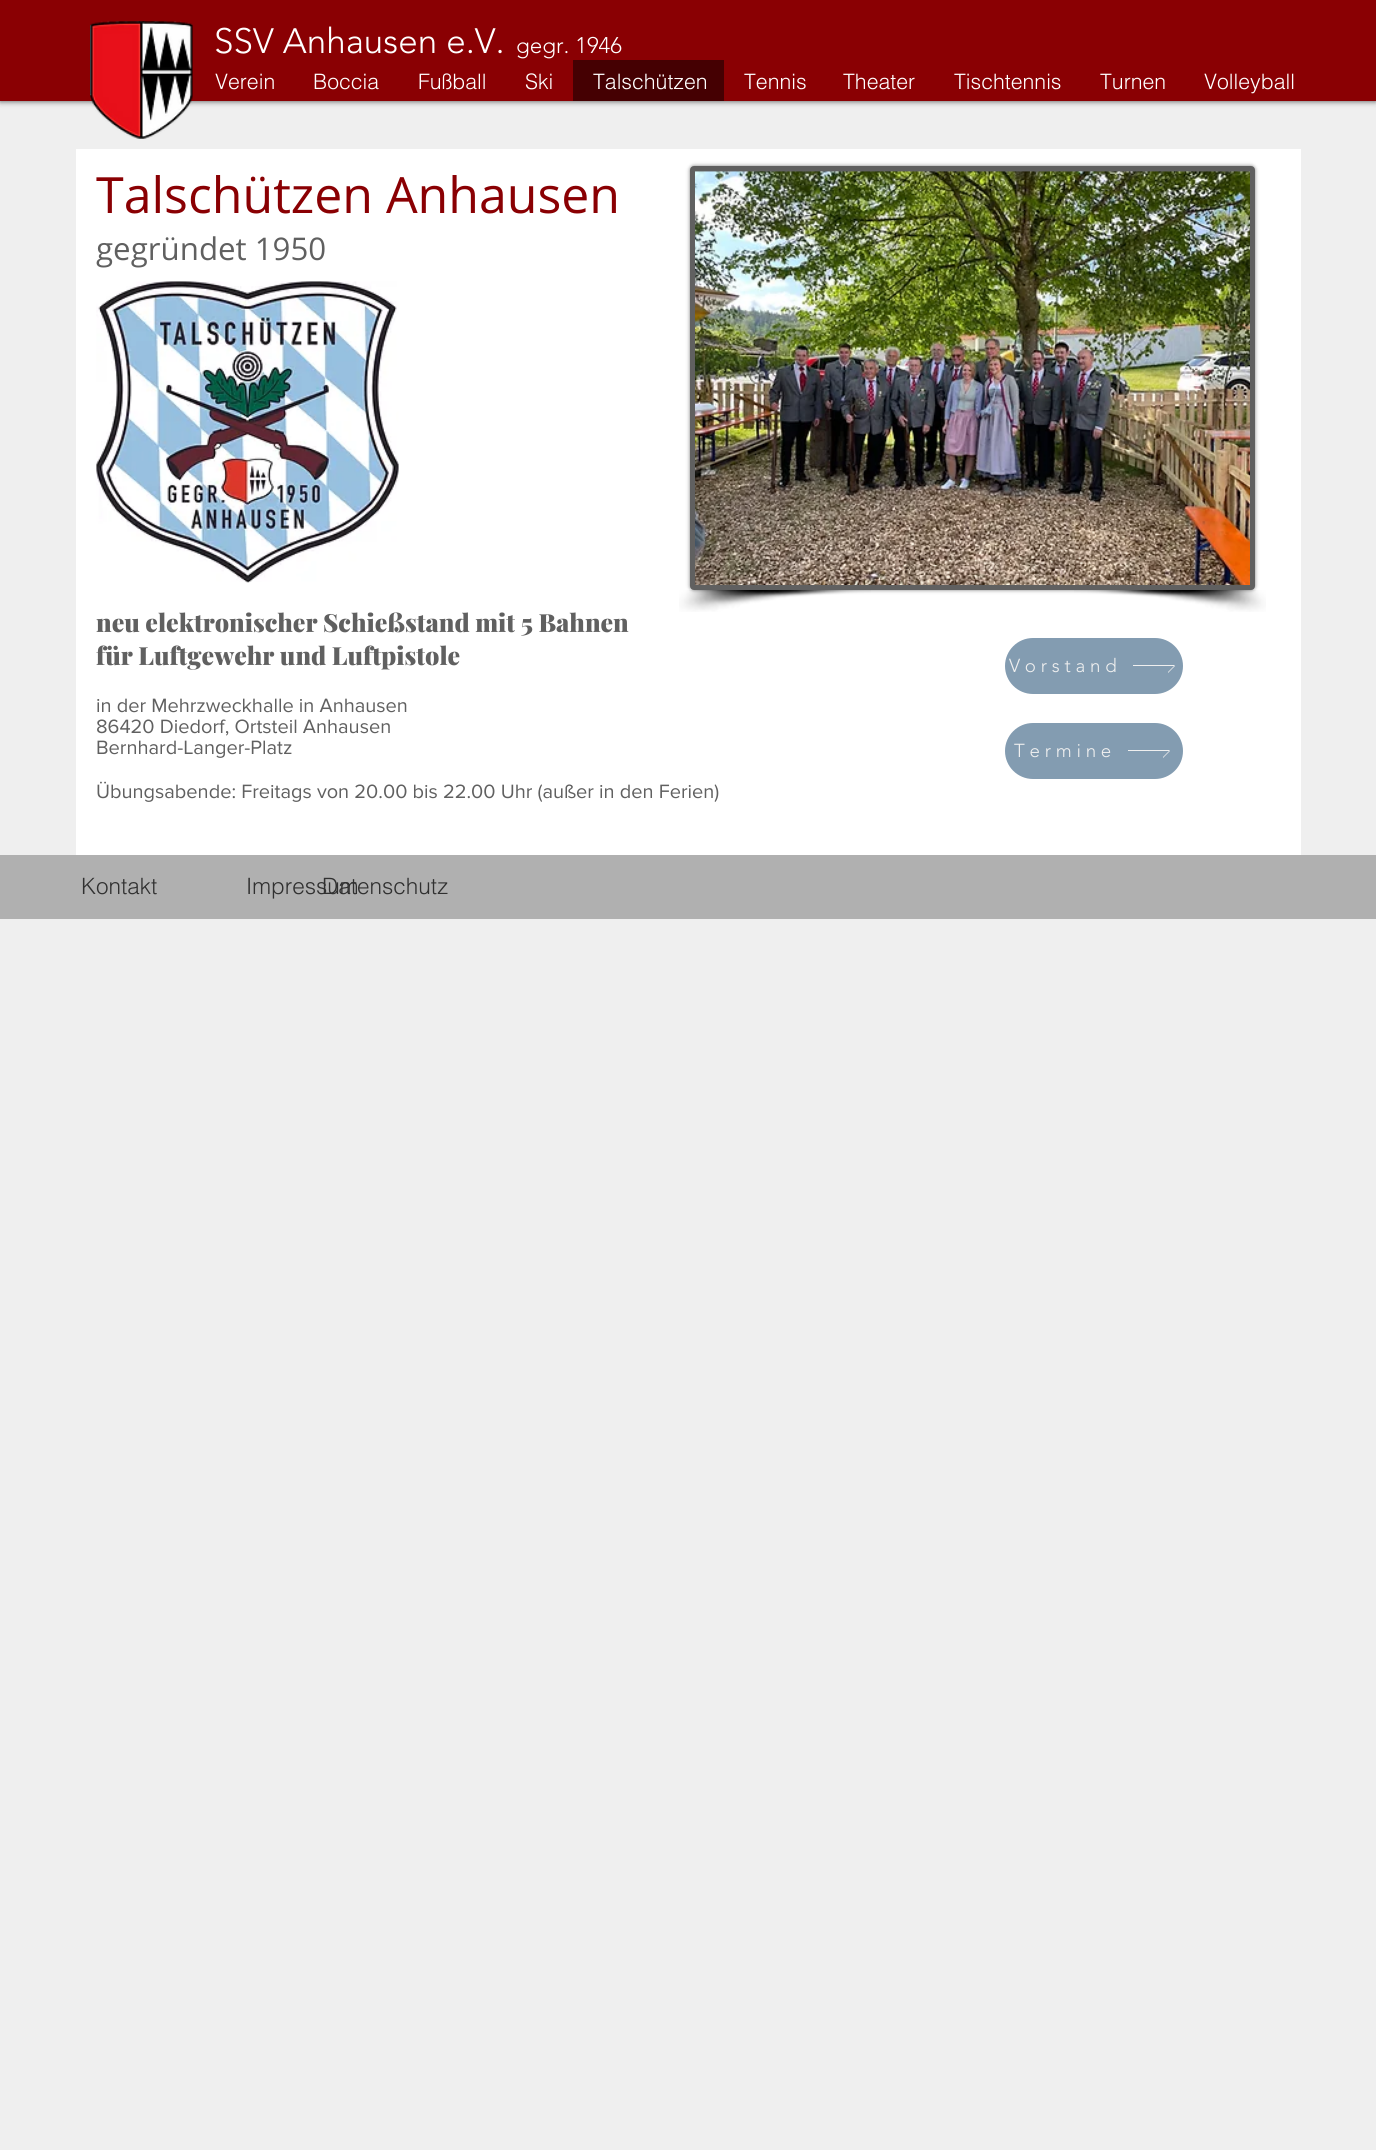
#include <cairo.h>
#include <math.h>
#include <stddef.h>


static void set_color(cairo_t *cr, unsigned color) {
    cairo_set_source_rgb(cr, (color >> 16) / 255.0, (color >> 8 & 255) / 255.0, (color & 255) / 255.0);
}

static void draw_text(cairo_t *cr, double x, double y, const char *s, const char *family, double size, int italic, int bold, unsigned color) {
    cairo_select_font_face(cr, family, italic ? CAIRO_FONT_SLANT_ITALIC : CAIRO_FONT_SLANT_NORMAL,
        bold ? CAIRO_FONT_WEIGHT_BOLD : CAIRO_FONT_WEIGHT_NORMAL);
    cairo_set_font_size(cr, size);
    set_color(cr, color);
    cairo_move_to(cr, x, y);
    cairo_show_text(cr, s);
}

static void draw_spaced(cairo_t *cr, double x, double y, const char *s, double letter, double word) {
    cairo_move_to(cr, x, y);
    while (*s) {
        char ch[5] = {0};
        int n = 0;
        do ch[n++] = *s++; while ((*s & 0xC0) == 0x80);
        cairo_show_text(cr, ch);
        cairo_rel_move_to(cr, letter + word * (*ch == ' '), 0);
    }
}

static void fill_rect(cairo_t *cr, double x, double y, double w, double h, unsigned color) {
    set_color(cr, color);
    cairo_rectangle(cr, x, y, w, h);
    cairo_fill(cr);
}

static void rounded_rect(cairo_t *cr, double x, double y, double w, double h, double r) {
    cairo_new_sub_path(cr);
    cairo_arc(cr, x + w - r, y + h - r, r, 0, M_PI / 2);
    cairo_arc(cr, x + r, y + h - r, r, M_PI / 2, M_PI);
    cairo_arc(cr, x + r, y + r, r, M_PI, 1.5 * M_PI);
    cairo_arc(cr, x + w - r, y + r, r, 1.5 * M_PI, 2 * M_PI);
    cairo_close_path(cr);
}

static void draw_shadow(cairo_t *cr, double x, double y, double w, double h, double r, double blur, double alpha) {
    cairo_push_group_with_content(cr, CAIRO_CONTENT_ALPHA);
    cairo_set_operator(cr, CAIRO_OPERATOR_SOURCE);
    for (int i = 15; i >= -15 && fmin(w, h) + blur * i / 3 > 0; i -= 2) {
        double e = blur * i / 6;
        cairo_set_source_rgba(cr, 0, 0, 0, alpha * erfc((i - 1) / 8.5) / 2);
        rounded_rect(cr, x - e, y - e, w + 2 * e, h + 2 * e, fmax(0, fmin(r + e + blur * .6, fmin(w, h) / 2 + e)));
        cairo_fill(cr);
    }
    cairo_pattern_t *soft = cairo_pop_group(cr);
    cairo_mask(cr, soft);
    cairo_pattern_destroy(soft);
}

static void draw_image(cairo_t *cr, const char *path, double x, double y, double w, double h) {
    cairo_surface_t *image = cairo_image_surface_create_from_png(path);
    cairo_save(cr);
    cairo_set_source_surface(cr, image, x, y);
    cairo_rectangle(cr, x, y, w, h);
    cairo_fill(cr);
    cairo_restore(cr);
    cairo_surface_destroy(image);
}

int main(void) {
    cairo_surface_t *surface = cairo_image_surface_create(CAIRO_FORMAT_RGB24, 1376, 2150);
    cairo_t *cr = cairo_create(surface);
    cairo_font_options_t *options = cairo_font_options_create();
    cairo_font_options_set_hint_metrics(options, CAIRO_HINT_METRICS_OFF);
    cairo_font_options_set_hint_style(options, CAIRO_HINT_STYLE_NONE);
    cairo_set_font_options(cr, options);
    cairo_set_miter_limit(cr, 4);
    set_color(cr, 0xEFEFEF);
    cairo_paint(cr);
    set_color(cr, 0x000000);
    draw_shadow(cr, 0, 0, 1376, 101, 0, 3, 0.7);
    fill_rect(cr, 0, 0, 1376, 101, 0x8A0003);
    draw_image(cr, "assets/img1.png", 90, 21, 103, 118);
    draw_text(cr, 214, 53, "SSV Anhausen e.V.", "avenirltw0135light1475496 Light", 35, 0, 0, 0xFFFFFF);
    draw_text(cr, 215, 89, "Verein", "helvetica Light", 21.25, 0, 0, 0xFFFFFF);
    draw_text(cr, 313, 89, "Boccia", "helvetica Light", 21.25, 0, 0, 0xFFFFFF);
    draw_text(cr, 418, 89, "Fußball", "helvetica Light", 21.25, 0, 0, 0xFFFFFF);
    draw_text(cr, 525, 89, "Ski", "helvetica Light", 21.25, 0, 0, 0xFFFFFF);
    fill_rect(cr, 573, 60, 151, 41, 0x450002);
    draw_text(cr, 593, 89, "Talschützen", "helvetica Light", 21.25, 0, 0, 0xFFFFFF);
    draw_text(cr, 744, 89, "Tennis", "helvetica Light", 21.25, 0, 0, 0xFFFFFF);
    draw_text(cr, 843, 89, "Theater", "helvetica Light", 21.25, 0, 0, 0xFFFFFF);
    draw_text(cr, 954, 89, "Tischtennis", "helvetica Light", 21.25, 0, 0, 0xFFFFFF);
    draw_text(cr, 1100, 89, "Turnen", "helvetica Light", 21.25, 0, 0, 0xFFFFFF);
    draw_text(cr, 1204, 89, "Volleyball", "helvetica Light", 21.25, 0, 0, 0xFFFFFF);
    draw_text(cr, 516, 53, "gegr. 1946", "avenirltw0135light1475496 Light", 22.5, 0, 0, 0xFFFFFF);
    fill_rect(cr, 76, 149, 1225, 706, 0xFFFFFF);
    draw_text(cr, 96, 213, "Talschützen Anhausen", "Open Sans", 50, 0, 0, 0x8A0003);
    draw_text(cr, 96, 260, "gegründet 1950", "Open Sans", 31.25, 0, 0, 0x606060);
    set_color(cr, 0x000000);
    draw_shadow(cr, 690, 166, 565, 424, 4, 2, 0.5);
    set_color(cr, 0x606060);
    rounded_rect(cr, 692.5, 168.5, 560, 419, 1.5);
    cairo_fill_preserve(cr);
    cairo_set_line_width(cr, 5);
    cairo_stroke(cr);
    draw_image(cr, "assets/img2.png", 695, 171, 555, 414);
    draw_image(cr, "assets/img3.png", 679, 590, 192, 22);
    draw_image(cr, "assets/img4.png", 1074, 590, 192, 22);
    draw_image(cr, "assets/img5.png", 96, 281, 303, 302);
    draw_text(cr, 96, 632, "neu elektronischer Schießstand mit 5 Bahnen", "Playfair Display Black", 25, 0, 0, 0x606060);
    draw_text(cr, 96, 665, "für Luftgewehr und Luftpistole", "Playfair Display Black", 25, 0, 0, 0x606060);
    draw_text(cr, 96, 712, "in der Mehrzweckhalle in Anhausen", "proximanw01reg", 20, 0, 0, 0x606060);
    draw_text(cr, 96, 733, "86420 Diedorf, Ortsteil Anhausen", "proximanw01reg", 20, 0, 0, 0x606060);
    draw_text(cr, 96, 754, "Bernhard-Langer-Platz", "proximanw01reg", 20, 0, 0, 0x606060);
    draw_text(cr, 96, 798, "Übungsabende: Freitags von 20.00 bis 22.00 Uhr (außer in den Ferien)", "proximanw01reg", 20, 0, 0, 0x606060);
    set_color(cr, 0x839CB1);
    rounded_rect(cr, 1005, 638, 178, 56, 28);
    cairo_fill(cr);
    cairo_select_font_face(cr, "avenirltw0135light1475496 Light", CAIRO_FONT_SLANT_NORMAL, CAIRO_FONT_WEIGHT_NORMAL);
    cairo_set_font_size(cr, 18.75);
    set_color(cr, 0xEFEFEF);
    draw_spaced(cr, 1009, 672, "Vorstand", 4.75, 0);
    cairo_new_path(cr);
    cairo_move_to(cr, 1168, 659);
    cairo_line_to(cr, 1174, 665);
    cairo_line_to(cr, 1133, 665);
    cairo_line_to(cr, 1133, 666);
    cairo_line_to(cr, 1174, 666);
    cairo_line_to(cr, 1168, 672);
    cairo_line_to(cr, 1168, 673);
    cairo_line_to(cr, 1175, 666);
    cairo_close_path(cr);
    cairo_fill(cr);
    set_color(cr, 0x839CB1);
    rounded_rect(cr, 1005, 723, 178, 56, 28);
    cairo_fill(cr);
    set_color(cr, 0xEFEFEF);
    draw_spaced(cr, 1014, 757, "Termine", 4.75, 0);
    cairo_new_path(cr);
    cairo_move_to(cr, 1163, 744);
    cairo_line_to(cr, 1169, 750);
    cairo_line_to(cr, 1128, 750);
    cairo_line_to(cr, 1128, 751);
    cairo_line_to(cr, 1169, 751);
    cairo_line_to(cr, 1163, 757);
    cairo_line_to(cr, 1163, 758);
    cairo_line_to(cr, 1170, 751);
    cairo_close_path(cr);
    cairo_fill(cr);
    fill_rect(cr, 0, 855, 1376, 64, 0xB0B0B0);
    draw_text(cr, 81, 894, "Kontakt", "helvetica Light", 22.5, 0, 0, 0x303030);
    draw_text(cr, 246, 894, "Impressum", "helvetica Light", 22.5, 0, 0, 0x303030);
    draw_text(cr, 322, 894, "Datenschutz", "helvetica Light", 22.5, 0, 0, 0x303030);
    cairo_surface_write_to_png(surface, "output.png");
    cairo_font_options_destroy(options);
    cairo_destroy(cr);
    cairo_surface_destroy(surface);
    return 0;
}
